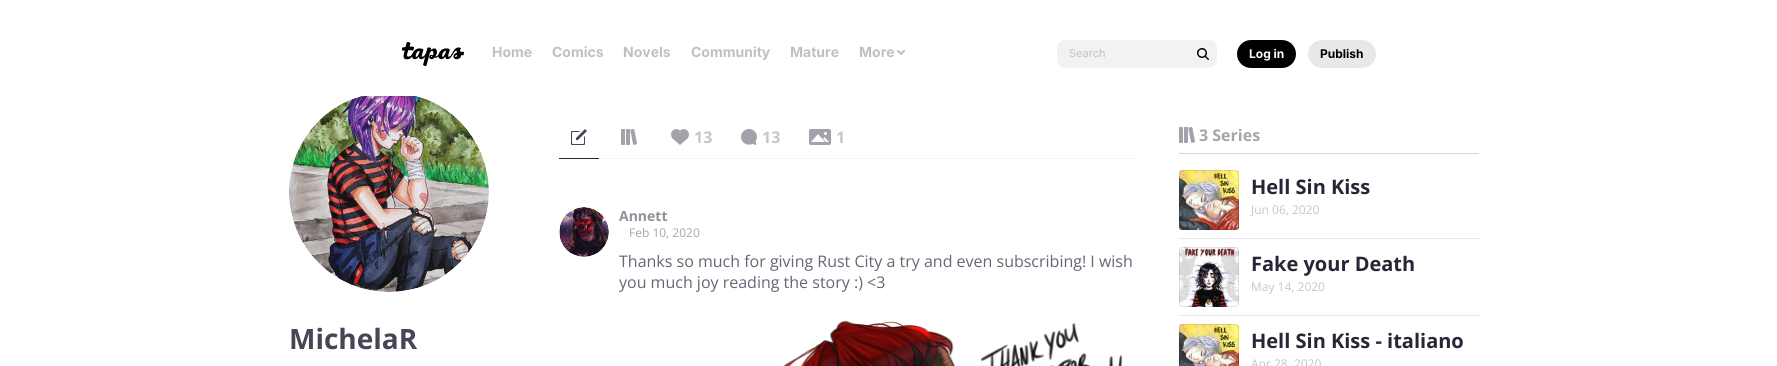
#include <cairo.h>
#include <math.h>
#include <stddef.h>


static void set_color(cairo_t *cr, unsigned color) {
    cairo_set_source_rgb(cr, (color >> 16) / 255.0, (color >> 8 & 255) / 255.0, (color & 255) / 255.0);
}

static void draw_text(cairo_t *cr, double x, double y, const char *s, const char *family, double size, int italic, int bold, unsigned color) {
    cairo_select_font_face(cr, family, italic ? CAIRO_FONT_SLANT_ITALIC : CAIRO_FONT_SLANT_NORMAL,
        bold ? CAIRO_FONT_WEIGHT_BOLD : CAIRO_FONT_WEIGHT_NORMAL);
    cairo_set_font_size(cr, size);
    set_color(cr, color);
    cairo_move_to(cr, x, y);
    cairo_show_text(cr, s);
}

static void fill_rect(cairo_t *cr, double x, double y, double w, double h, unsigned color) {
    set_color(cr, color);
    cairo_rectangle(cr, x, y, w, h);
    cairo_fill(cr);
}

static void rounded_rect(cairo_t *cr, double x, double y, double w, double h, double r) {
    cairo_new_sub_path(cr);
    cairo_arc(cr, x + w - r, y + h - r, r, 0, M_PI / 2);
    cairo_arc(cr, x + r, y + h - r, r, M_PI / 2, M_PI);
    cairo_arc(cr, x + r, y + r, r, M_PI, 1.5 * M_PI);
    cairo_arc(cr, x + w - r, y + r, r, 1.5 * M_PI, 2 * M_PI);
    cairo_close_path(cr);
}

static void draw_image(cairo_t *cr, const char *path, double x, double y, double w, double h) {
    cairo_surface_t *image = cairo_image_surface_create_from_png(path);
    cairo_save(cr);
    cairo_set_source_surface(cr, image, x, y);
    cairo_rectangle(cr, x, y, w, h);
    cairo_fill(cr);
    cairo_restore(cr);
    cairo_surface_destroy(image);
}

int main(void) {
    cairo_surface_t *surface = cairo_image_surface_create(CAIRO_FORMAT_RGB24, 1777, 366);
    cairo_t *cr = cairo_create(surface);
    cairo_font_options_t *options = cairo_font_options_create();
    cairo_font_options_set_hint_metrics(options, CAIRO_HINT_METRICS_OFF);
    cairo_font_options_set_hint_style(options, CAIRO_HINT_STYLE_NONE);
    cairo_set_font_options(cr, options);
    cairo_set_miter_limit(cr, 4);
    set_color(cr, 0xFFFFFF);
    cairo_paint(cr);
    draw_image(cr, "assets/img1.png", 402, 42, 62, 24);
    draw_text(cr, 492, 57, "Home", "Inter", 14, 0, 1, 0xC0C0C0);
    draw_text(cr, 552, 57, "Comics", "Inter", 14, 0, 1, 0xC0C0C0);
    draw_text(cr, 623, 57, "Novels", "Inter", 14, 0, 1, 0xC0C0C0);
    draw_text(cr, 691, 57, "Community", "Inter", 14, 0, 1, 0xC0C0C0);
    draw_text(cr, 790, 57, "Mature", "Inter", 14, 0, 1, 0xC0C0C0);
    draw_text(cr, 859, 57, "More", "Inter", 14, 0, 1, 0xC0C0C0);
    draw_image(cr, "assets/img2.png", 897, 50, 8, 5);
    set_color(cr, 0xF2F2F2);
    rounded_rect(cr, 1057, 40, 160, 28, 8);
    cairo_fill(cr);
    draw_text(cr, 1069, 57, "Search", "Inter", 11, 0, 0, 0xC0C0C0);
    draw_image(cr, "assets/img3.png", 1197, 48, 12, 12);
    set_color(cr, 0x000000);
    rounded_rect(cr, 1237, 40, 59, 28, 14);
    cairo_fill(cr);
    draw_text(cr, 1249, 58, "Log in", "Inter", 12, 0, 1, 0xFFFFFF);
    set_color(cr, 0xE8E8E8);
    rounded_rect(cr, 1308, 40, 68, 28, 14);
    cairo_fill(cr);
    draw_text(cr, 1320, 58, "Publish", "Inter", 12, 0, 1, 0x000000);
    draw_image(cr, "assets/img4.png", 289, 96, 200, 196);
    draw_text(cr, 289, 349, "MichelaR", "Open Sans", 28, 0, 1, 0x464656);
    fill_rect(cr, 599, 158, 540, 1, 0xF6F6F6);
    fill_rect(cr, 559, 158, 40, 1, 0x262636);
    draw_image(cr, "assets/img5.png", 571, 129, 16, 16);
    draw_image(cr, "assets/img6.png", 621, 129, 16, 16);
    draw_image(cr, "assets/img7.png", 671, 129, 18, 16);
    draw_text(cr, 694, 143, "13", "Open Sans", 16, 0, 1, 0xC6C6C6);
    draw_image(cr, "assets/img8.png", 741, 129, 16, 16);
    draw_text(cr, 762, 143, "13", "Open Sans", 16, 0, 1, 0xC6C6C6);
    draw_image(cr, "assets/img9.png", 809, 129, 22, 16);
    draw_text(cr, 836, 143, "1", "Open Sans", 16, 0, 1, 0xC6C6C6);
    fill_rect(cr, 1179, 153, 300, 1, 0xD6D6D6);
    draw_image(cr, "assets/img10.png", 1179, 127, 16, 16);
    draw_text(cr, 1199, 141, "3 Series", "Open Sans", 16, 0, 1, 0xA6A6A6);
    fill_rect(cr, 1179, 238, 300, 1, 0xE6E6E6);
    draw_image(cr, "assets/img11.png", 1179, 170, 60, 60);
    rounded_rect(cr, 1179.5, 170.5, 59, 59, 3.5);
    cairo_set_source_rgba(cr, 0.024, 0.024, 0.086, 0.1);
    cairo_set_line_width(cr, 1);
    cairo_stroke(cr);
    draw_text(cr, 1251, 194, "Hell Sin Kiss", "Open Sans", 20, 0, 1, 0x262636);
    draw_text(cr, 1251, 214, "Jun 06, 2020", "Open Sans", 12, 0, 0, 0xC6C6C6);
    fill_rect(cr, 1179, 315, 300, 1, 0xE6E6E6);
    draw_image(cr, "assets/img12.png", 1179, 247, 60, 60);
    rounded_rect(cr, 1179.5, 247.5, 59, 59, 3.5);
    cairo_set_source_rgba(cr, 0.024, 0.024, 0.086, 0.1);
    cairo_stroke(cr);
    draw_text(cr, 1251, 271, "Fake your Death", "Open Sans", 20, 0, 1, 0x262636);
    draw_text(cr, 1251, 291, "May 14, 2020", "Open Sans", 12, 0, 0, 0xC6C6C6);
    draw_image(cr, "assets/img13.png", 1179, 324, 60, 42);
    rounded_rect(cr, 1179.5, 324.5, 59, 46, 3.5);
    cairo_set_source_rgba(cr, 0.024, 0.024, 0.086, 0.1);
    cairo_stroke(cr);
    draw_text(cr, 1251, 348, "Hell Sin Kiss - italiano", "Open Sans", 20, 0, 1, 0x262636);
    draw_text(cr, 1251, 368, "Apr 28, 2020", "Open Sans", 12, 0, 0, 0xC6C6C6);
    draw_image(cr, "assets/img14.png", 559, 207, 50, 50);
    draw_text(cr, 619, 221, "Annett", "Open Sans", 14, 0, 1, 0x90909A);
    draw_text(cr, 629, 237, "Feb 10, 2020", "Open Sans", 12, 0, 0, 0xA6A6A6);
    draw_text(cr, 619, 267, "Thanks so much for giving Rust City a try and even subscribing! I wish", "Open Sans", 16, 0, 0, 0x666676);
    draw_text(cr, 619, 288, "you much joy reading the story :) <3", "Open Sans", 16, 0, 0, 0x666676);
    draw_image(cr, "assets/img15.png", 783, 320, 340, 46);
    cairo_surface_write_to_png(surface, "output.png");
    cairo_font_options_destroy(options);
    cairo_destroy(cr);
    cairo_surface_destroy(surface);
    return 0;
}
